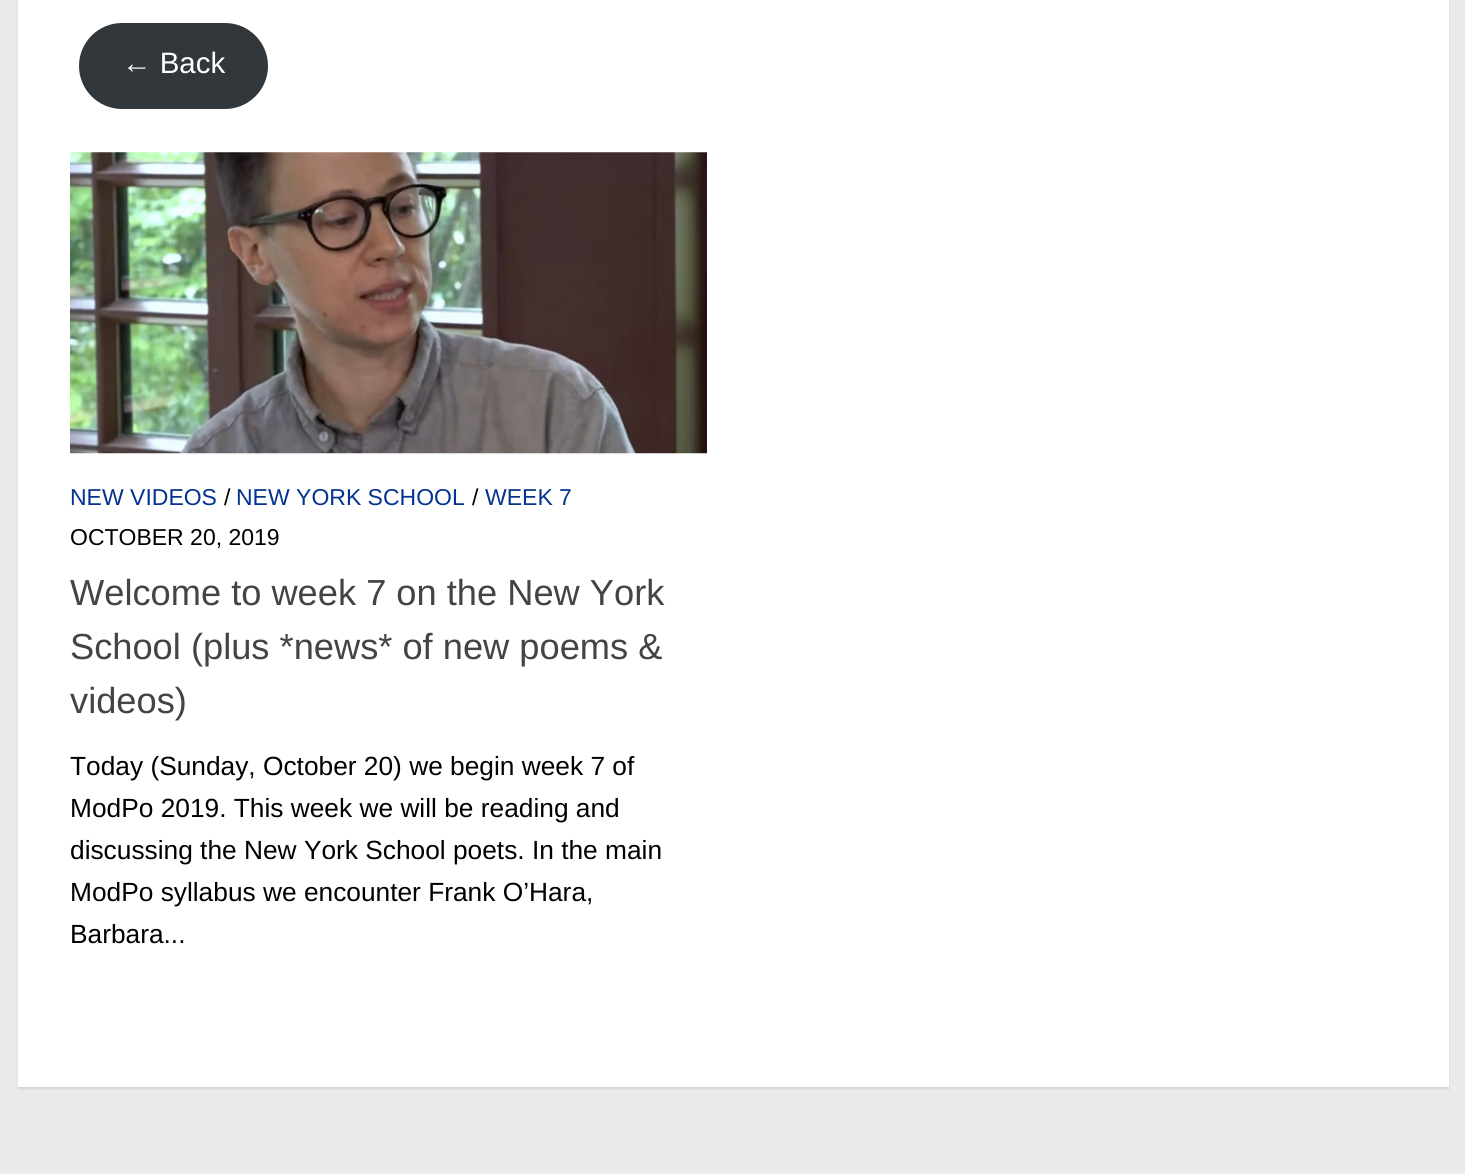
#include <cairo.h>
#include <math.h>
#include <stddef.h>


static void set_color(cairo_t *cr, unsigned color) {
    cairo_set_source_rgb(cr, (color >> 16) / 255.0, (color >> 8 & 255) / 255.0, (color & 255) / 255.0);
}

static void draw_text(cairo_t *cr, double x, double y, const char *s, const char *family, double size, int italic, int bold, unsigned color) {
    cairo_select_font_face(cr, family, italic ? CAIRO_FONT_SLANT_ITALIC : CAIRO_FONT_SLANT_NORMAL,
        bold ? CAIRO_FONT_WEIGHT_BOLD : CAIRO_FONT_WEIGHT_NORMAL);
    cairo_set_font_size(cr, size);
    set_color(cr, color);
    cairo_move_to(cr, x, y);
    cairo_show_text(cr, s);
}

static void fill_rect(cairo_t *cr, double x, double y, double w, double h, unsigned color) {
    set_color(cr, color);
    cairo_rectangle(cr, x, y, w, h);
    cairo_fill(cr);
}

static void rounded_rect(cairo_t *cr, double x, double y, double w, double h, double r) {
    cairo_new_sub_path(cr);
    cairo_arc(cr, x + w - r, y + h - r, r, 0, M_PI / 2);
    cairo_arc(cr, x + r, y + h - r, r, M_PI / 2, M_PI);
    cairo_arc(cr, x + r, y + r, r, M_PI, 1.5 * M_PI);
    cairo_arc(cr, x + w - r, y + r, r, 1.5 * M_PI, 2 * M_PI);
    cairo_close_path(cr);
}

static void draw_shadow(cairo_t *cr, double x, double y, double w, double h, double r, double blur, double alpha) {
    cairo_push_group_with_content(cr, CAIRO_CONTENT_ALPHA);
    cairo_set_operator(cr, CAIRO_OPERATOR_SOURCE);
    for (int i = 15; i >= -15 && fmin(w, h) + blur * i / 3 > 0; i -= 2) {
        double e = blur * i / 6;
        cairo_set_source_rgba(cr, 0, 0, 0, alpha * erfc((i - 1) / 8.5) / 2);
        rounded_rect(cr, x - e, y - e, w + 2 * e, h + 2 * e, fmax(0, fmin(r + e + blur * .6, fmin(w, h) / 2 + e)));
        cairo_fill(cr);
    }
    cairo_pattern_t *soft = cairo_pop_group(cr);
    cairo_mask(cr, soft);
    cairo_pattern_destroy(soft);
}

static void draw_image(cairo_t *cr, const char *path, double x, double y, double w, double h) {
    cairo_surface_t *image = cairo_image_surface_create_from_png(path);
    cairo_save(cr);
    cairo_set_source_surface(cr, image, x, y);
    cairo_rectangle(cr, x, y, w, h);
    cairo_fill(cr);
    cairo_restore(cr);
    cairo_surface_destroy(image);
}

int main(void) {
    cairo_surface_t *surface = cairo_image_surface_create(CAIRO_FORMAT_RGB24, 1465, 1174);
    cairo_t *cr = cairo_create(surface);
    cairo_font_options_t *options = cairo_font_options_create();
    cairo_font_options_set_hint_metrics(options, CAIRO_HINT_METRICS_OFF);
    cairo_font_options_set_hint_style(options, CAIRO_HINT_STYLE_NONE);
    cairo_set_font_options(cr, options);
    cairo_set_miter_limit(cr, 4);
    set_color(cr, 0xEAEAEA);
    cairo_paint(cr);
    set_color(cr, 0x000000);
    draw_shadow(cr, 18, -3, 1431, 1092, 0, 1, 0.1);
    fill_rect(cr, 18, 0, 1431, 1087, 0xFFFFFF);
    set_color(cr, 0x32373C);
    rounded_rect(cr, 79, 23, 189, 86, 43);
    cairo_fill(cr);
    draw_text(cr, 122, 73, "← Back", "Liberation Sans", 29.5, 0, 0, 0xFFFFFF);
    draw_image(cr, "assets/img1.png", 70, 152, 637, 302);
    draw_text(cr, 70, 505, "NEW VIDEOS", "Liberation Sans", 23, 0, 0, 0x043490);
    draw_text(cr, 224, 505, "/", "Liberation Sans", 23, 0, 0, 0x000000);
    draw_text(cr, 236, 505, "NEW YORK SCHOOL", "Liberation Sans", 23, 0, 0, 0x043490);
    draw_text(cr, 472, 505, "/", "Liberation Sans", 23, 0, 0, 0x000000);
    draw_text(cr, 485, 505, "WEEK 7", "Liberation Sans", 23, 0, 0, 0x043490);
    draw_text(cr, 70, 545, "OCTOBER 20, 2019", "Liberation Sans", 23, 0, 0, 0x000000);
    draw_text(cr, 70, 605, "Welcome to week 7 on the New York", "Liberation Sans", 36.25, 0, 0, 0x444444);
    draw_text(cr, 70, 659, "School (plus *news* of new poems &", "Liberation Sans", 36.25, 0, 0, 0x444444);
    draw_text(cr, 70, 713, "videos)", "Liberation Sans", 36.25, 0, 0, 0x444444);
    draw_text(cr, 70, 775, "Today (Sunday, October 20) we begin week 7 of", "Liberation Sans", 26.3, 0, 0, 0x000000);
    draw_text(cr, 70, 817, "ModPo 2019. This week we will be reading and", "Liberation Sans", 26.3, 0, 0, 0x000000);
    draw_text(cr, 70, 859, "discussing the New York School poets. In the main", "Liberation Sans", 26.3, 0, 0, 0x000000);
    draw_text(cr, 70, 901, "ModPo syllabus we encounter Frank O’Hara,", "Liberation Sans", 26.3, 0, 0, 0x000000);
    draw_text(cr, 70, 943, "Barbara...", "Liberation Sans", 26.3, 0, 0, 0x000000);
    cairo_surface_write_to_png(surface, "output.png");
    cairo_font_options_destroy(options);
    cairo_destroy(cr);
    cairo_surface_destroy(surface);
    return 0;
}
